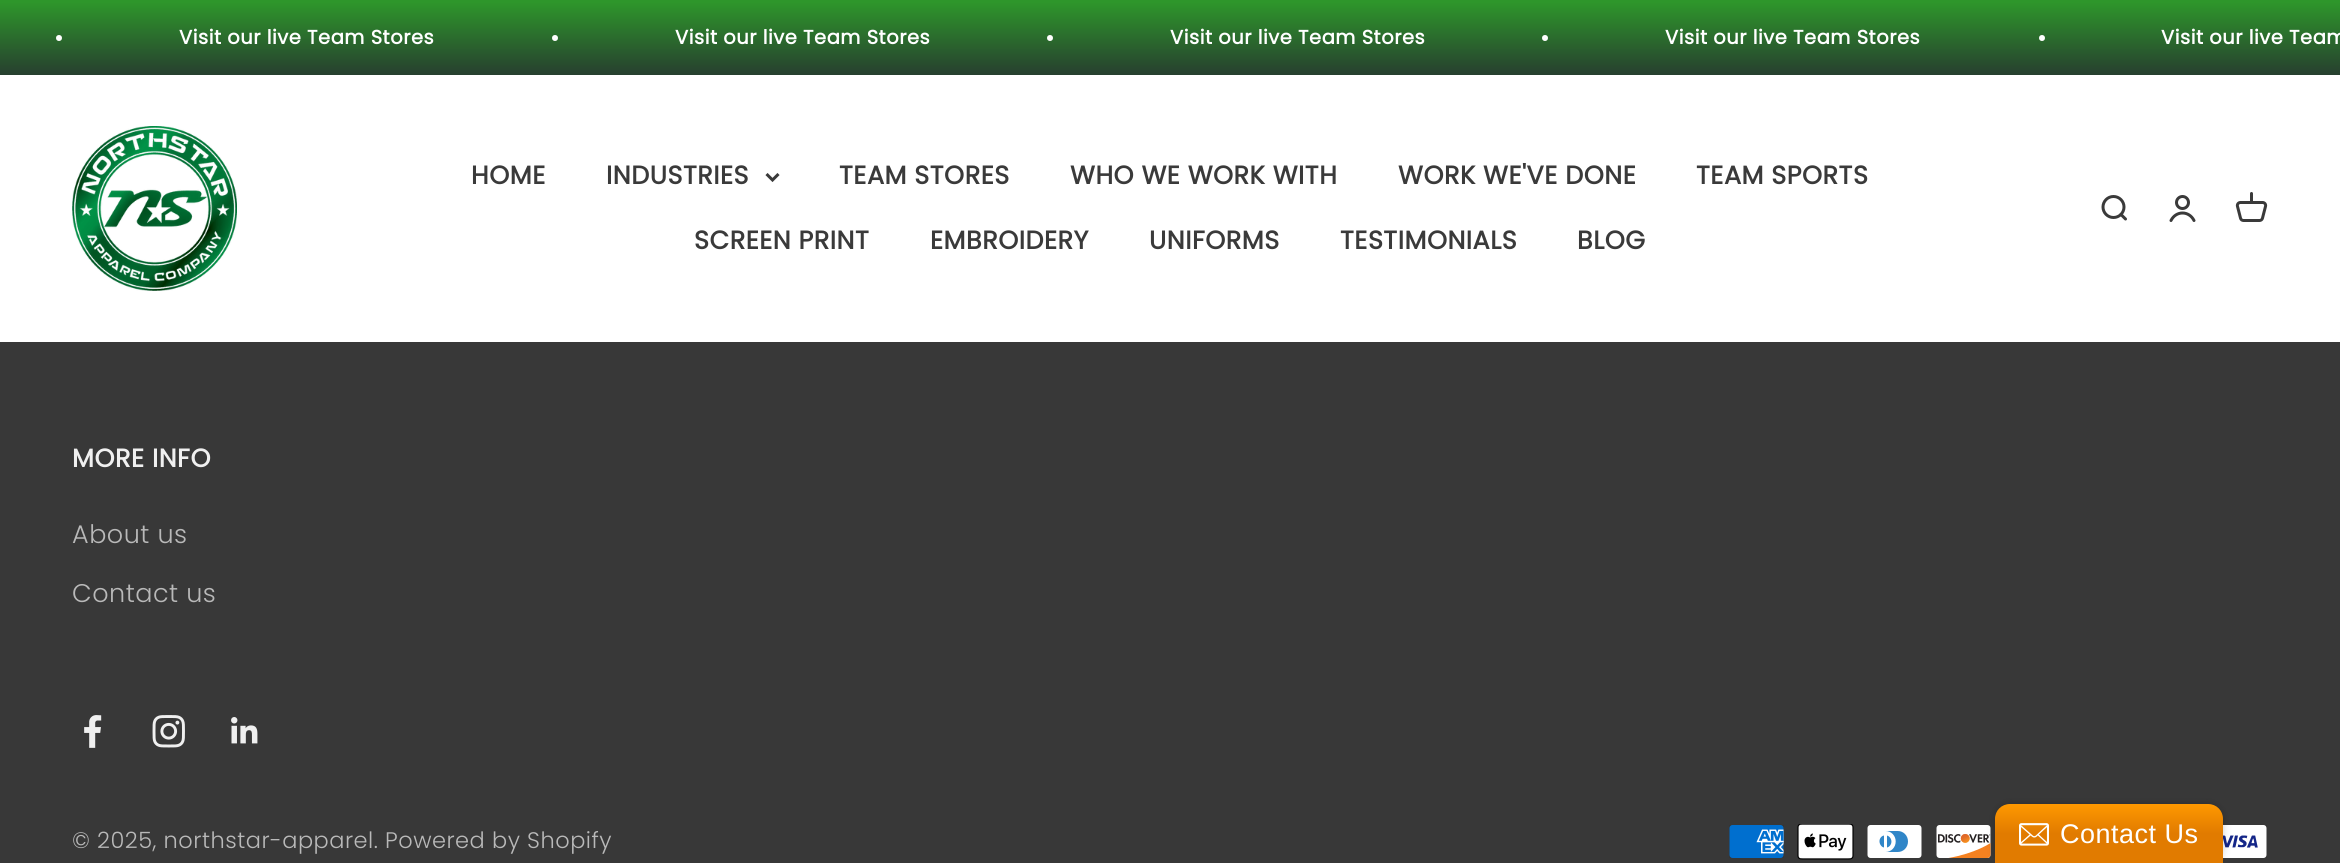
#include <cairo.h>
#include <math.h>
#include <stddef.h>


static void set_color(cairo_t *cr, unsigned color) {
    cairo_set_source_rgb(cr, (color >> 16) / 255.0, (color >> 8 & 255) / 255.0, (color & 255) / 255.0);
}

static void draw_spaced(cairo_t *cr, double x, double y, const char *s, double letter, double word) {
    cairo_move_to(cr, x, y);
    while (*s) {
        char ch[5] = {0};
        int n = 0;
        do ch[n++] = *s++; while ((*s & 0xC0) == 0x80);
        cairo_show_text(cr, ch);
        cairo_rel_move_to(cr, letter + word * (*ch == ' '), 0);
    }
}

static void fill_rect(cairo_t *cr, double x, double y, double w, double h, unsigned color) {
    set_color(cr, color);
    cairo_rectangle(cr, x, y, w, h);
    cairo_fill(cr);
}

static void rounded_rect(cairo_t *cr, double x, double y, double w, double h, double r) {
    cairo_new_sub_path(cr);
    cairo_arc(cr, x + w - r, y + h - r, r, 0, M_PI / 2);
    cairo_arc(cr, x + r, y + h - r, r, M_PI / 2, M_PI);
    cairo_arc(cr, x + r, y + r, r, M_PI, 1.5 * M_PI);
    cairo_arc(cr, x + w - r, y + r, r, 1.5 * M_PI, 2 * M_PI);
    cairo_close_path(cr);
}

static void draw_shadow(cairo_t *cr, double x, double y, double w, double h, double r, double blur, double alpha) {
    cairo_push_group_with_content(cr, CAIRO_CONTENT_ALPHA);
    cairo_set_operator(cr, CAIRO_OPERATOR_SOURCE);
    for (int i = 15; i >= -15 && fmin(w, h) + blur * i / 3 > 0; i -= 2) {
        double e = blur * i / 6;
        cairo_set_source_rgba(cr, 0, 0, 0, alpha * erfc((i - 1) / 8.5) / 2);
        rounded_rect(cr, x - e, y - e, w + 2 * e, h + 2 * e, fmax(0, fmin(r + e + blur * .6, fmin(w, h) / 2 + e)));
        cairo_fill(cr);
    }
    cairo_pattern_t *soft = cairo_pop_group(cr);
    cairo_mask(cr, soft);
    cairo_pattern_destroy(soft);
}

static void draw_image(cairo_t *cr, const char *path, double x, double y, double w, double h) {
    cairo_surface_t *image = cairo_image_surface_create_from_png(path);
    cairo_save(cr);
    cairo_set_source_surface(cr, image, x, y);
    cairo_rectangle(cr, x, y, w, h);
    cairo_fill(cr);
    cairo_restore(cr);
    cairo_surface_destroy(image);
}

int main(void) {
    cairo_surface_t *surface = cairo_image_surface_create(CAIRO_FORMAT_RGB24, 2340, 863);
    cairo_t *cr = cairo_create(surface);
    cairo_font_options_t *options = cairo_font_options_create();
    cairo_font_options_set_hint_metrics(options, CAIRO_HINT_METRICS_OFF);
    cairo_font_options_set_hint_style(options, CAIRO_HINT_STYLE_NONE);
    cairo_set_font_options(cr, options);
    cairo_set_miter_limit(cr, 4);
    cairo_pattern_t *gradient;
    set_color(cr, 0xFFFFFF);
    cairo_paint(cr);
    gradient = cairo_pattern_create_linear(1170, 0, 1170, 75);
    cairo_pattern_add_color_stop_rgba(gradient, 0.03, 0.18, 0.588, 0.169, 1);
    cairo_pattern_add_color_stop_rgba(gradient, 1, 0.153, 0.247, 0.184, 1);
    cairo_set_source(cr, gradient);
    cairo_pattern_destroy(gradient);
    cairo_rectangle(cr, 0, 0, 2340, 75);
    cairo_fill(cr);
    set_color(cr, 0xFFFFFF);
    cairo_arc(cr, 59, 38, 3, 0, 2 * M_PI);
    cairo_fill(cr);
    cairo_select_font_face(cr, "Poppins", CAIRO_FONT_SLANT_NORMAL, CAIRO_FONT_WEIGHT_BOLD);
    cairo_set_font_size(cr, 19.5);
    draw_spaced(cr, 179, 44, "Visit our live Team Stores", 0.5, 0);
    cairo_new_path(cr);
    cairo_arc(cr, 555, 38, 3, 0, 2 * M_PI);
    cairo_fill(cr);
    draw_spaced(cr, 675, 44, "Visit our live Team Stores", 0.5, 0);
    cairo_new_path(cr);
    cairo_arc(cr, 1050, 38, 3, 0, 2 * M_PI);
    cairo_fill(cr);
    draw_spaced(cr, 1170, 44, "Visit our live Team Stores", 0.5, 0);
    cairo_new_path(cr);
    cairo_arc(cr, 1545, 38, 3, 0, 2 * M_PI);
    cairo_fill(cr);
    draw_spaced(cr, 1665, 44, "Visit our live Team Stores", 0.5, 0);
    cairo_new_path(cr);
    cairo_arc(cr, 2042, 38, 3, 0, 2 * M_PI);
    cairo_fill(cr);
    draw_spaced(cr, 2161, 44, "Visit our live Team", 0.5, 0);
    draw_image(cr, "assets/img1.png", 72, 126, 165, 165);
    cairo_set_font_size(cr, 25.5);
    set_color(cr, 0x3A3A3A);
    draw_spaced(cr, 471, 184, "HOME", 0.5, 0);
    draw_spaced(cr, 606, 184, "INDUSTRIES", 0.5, 0);
    cairo_new_path(cr);
    cairo_move_to(cr, 766.5, 174);
    cairo_line_to(cr, 772.5, 180);
    cairo_line_to(cr, 778.5, 174);
    cairo_set_line_width(cr, 3);
    cairo_stroke(cr);
    draw_spaced(cr, 839, 184, "TEAM STORES", 0.5, 0);
    draw_spaced(cr, 1070, 184, "WHO WE WORK WITH", 0.5, 0);
    draw_spaced(cr, 1398, 184, "WORK WE'VE DONE", 0.5, 0);
    draw_spaced(cr, 1696, 184, "TEAM SPORTS", 0.5, 0);
    draw_spaced(cr, 694, 249, "SCREEN PRINT", 0.5, 0);
    draw_spaced(cr, 930, 249, "EMBROIDERY", 0.5, 0);
    draw_spaced(cr, 1149, 249, "UNIFORMS", 0.5, 0);
    draw_spaced(cr, 1340, 249, "TESTIMONIALS", 0.5, 0);
    draw_spaced(cr, 1577, 249, "BLOG", 0.5, 0);
    cairo_new_path(cr);
    cairo_arc(cr, 2113.5, 207, 10.5, 0, 2 * M_PI);
    cairo_stroke(cr);
    cairo_new_path(cr);
    cairo_move_to(cr, 2121, 214.5);
    cairo_line_to(cr, 2125.5, 219);
    cairo_set_line_cap(cr, CAIRO_LINE_CAP_ROUND);
    cairo_set_line_join(cr, CAIRO_LINE_JOIN_ROUND);
    cairo_stroke(cr);
    cairo_arc(cr, 2182.5, 202.5, 6, 0, 2 * M_PI);
    cairo_set_line_cap(cr, CAIRO_LINE_CAP_BUTT);
    cairo_set_line_join(cr, CAIRO_LINE_JOIN_MITER);
    cairo_stroke(cr);
    cairo_new_path(cr);
    cairo_move_to(cr, 2171, 220.5);
    cairo_curve_to(cr, 2176, 210.5, 2189, 210.5, 2194, 220.5);
    cairo_set_line_cap(cr, CAIRO_LINE_CAP_ROUND);
    cairo_stroke(cr);
    draw_image(cr, "assets/img2.png", 2235, 192, 33, 30);
    fill_rect(cr, 0, 342, 2340, 521, 0x383838);
    set_color(cr, 0xF0F0F0);
    draw_spaced(cr, 72, 467, "MORE INFO", 0.5, 0);
    cairo_select_font_face(cr, "Poppins Light", CAIRO_FONT_SLANT_NORMAL, CAIRO_FONT_WEIGHT_NORMAL);
    set_color(cr, 0xB9B9B9);
    draw_spaced(cr, 72, 543, "About us", 0.5, 0);
    draw_spaced(cr, 72, 602, "Contact us", 0.5, 0);
    draw_image(cr, "assets/img3.png", 84, 715, 18, 33);
    draw_image(cr, "assets/img4.png", 152, 715, 33, 33);
    draw_image(cr, "assets/img5.png", 231, 717, 27, 27);
    cairo_set_font_size(cr, 22.5);
    draw_spaced(cr, 72, 848, "© 2025, northstar-apparel. Powered by Shopify", 0.5, 0);
    draw_image(cr, "assets/img6.png", 1729, 825, 55, 33);
    draw_image(cr, "assets/img7.png", 1797, 824, 57, 36);
    draw_image(cr, "assets/img8.png", 1867, 825, 55, 33);
    draw_image(cr, "assets/img9.png", 1936, 825, 55, 33);
    draw_image(cr, "assets/img10.png", 2223, 825, 44, 33);
    set_color(cr, 0x000000);
    draw_shadow(cr, 1995, 804, 228, 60, 15, 4, 0.2);
    gradient = cairo_pattern_create_linear(2109, 804, 2109, 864);
    cairo_pattern_add_color_stop_rgba(gradient, 0, 1, 0.6, 0, 1);
    cairo_pattern_add_color_stop_rgba(gradient, 0.5, 0.882, 0.482, 0, 1);
    cairo_set_source(cr, gradient);
    cairo_pattern_destroy(gradient);
    cairo_new_path(cr);
    cairo_move_to(cr, 2010, 804);
    cairo_line_to(cr, 2208, 804);
    cairo_curve_to(cr, 2216.5, 804, 2223, 810.5, 2223, 819);
    cairo_line_to(cr, 2223, 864);
    cairo_line_to(cr, 1995, 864);
    cairo_line_to(cr, 1995, 819);
    cairo_curve_to(cr, 1995, 810.5, 2001.5, 804, 2010, 804);
    cairo_close_path(cr);
    cairo_fill(cr);
    draw_image(cr, "assets/img11.png", 2019, 823, 30, 23);
    cairo_select_font_face(cr, "Liberation Sans", CAIRO_FONT_SLANT_NORMAL, CAIRO_FONT_WEIGHT_NORMAL);
    cairo_set_font_size(cr, 27);
    set_color(cr, 0xFFFFFF);
    draw_spaced(cr, 2060, 843, "Contact Us", 0.5, 0);
    cairo_surface_write_to_png(surface, "output.png");
    cairo_font_options_destroy(options);
    cairo_destroy(cr);
    cairo_surface_destroy(surface);
    return 0;
}
